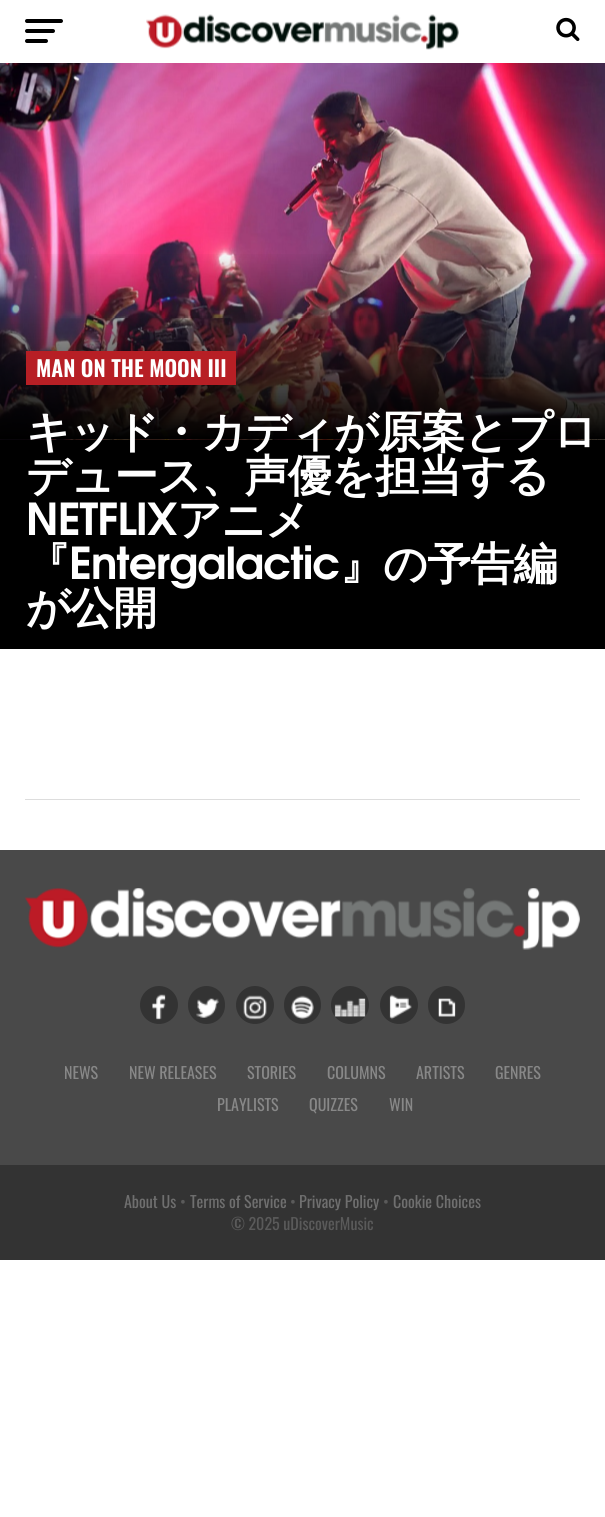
#include <cairo.h>
#include <math.h>
#include <stddef.h>


static void set_color(cairo_t *cr, unsigned color) {
    cairo_set_source_rgb(cr, (color >> 16) / 255.0, (color >> 8 & 255) / 255.0, (color & 255) / 255.0);
}

static void draw_text(cairo_t *cr, double x, double y, const char *s, const char *family, double size, int italic, int bold, unsigned color) {
    cairo_select_font_face(cr, family, italic ? CAIRO_FONT_SLANT_ITALIC : CAIRO_FONT_SLANT_NORMAL,
        bold ? CAIRO_FONT_WEIGHT_BOLD : CAIRO_FONT_WEIGHT_NORMAL);
    cairo_set_font_size(cr, size);
    set_color(cr, color);
    cairo_move_to(cr, x, y);
    cairo_show_text(cr, s);
}

static void draw_spaced(cairo_t *cr, double x, double y, const char *s, double letter, double word) {
    cairo_move_to(cr, x, y);
    while (*s) {
        char ch[5] = {0};
        int n = 0;
        do ch[n++] = *s++; while ((*s & 0xC0) == 0x80);
        cairo_show_text(cr, ch);
        cairo_rel_move_to(cr, letter + word * (*ch == ' '), 0);
    }
}

static void fill_rect(cairo_t *cr, double x, double y, double w, double h, unsigned color) {
    set_color(cr, color);
    cairo_rectangle(cr, x, y, w, h);
    cairo_fill(cr);
}

static void rounded_rect(cairo_t *cr, double x, double y, double w, double h, double r) {
    cairo_new_sub_path(cr);
    cairo_arc(cr, x + w - r, y + h - r, r, 0, M_PI / 2);
    cairo_arc(cr, x + r, y + h - r, r, M_PI / 2, M_PI);
    cairo_arc(cr, x + r, y + r, r, M_PI, 1.5 * M_PI);
    cairo_arc(cr, x + w - r, y + r, r, 1.5 * M_PI, 2 * M_PI);
    cairo_close_path(cr);
}

static void draw_image(cairo_t *cr, const char *path, double x, double y, double w, double h) {
    cairo_surface_t *image = cairo_image_surface_create_from_png(path);
    cairo_save(cr);
    cairo_set_source_surface(cr, image, x, y);
    cairo_rectangle(cr, x, y, w, h);
    cairo_fill(cr);
    cairo_restore(cr);
    cairo_surface_destroy(image);
}

int main(void) {
    cairo_surface_t *surface = cairo_image_surface_create(CAIRO_FORMAT_RGB24, 605, 1517);
    cairo_t *cr = cairo_create(surface);
    cairo_font_options_t *options = cairo_font_options_create();
    cairo_font_options_set_hint_metrics(options, CAIRO_HINT_METRICS_OFF);
    cairo_font_options_set_hint_style(options, CAIRO_HINT_STYLE_NONE);
    cairo_set_font_options(cr, options);
    cairo_set_miter_limit(cr, 4);
    cairo_pattern_t *gradient;
    set_color(cr, 0xFFFFFF);
    cairo_paint(cr);
    set_color(cr, 0x000000);
    rounded_rect(cr, 25, 19, 38, 4, 2);
    cairo_fill(cr);
    rounded_rect(cr, 25, 29, 30, 4, 2);
    cairo_fill(cr);
    rounded_rect(cr, 25, 39, 23, 4, 2);
    cairo_fill(cr);
    draw_image(cr, "assets/img1.png", 146, 14, 313, 36);
    draw_image(cr, "assets/img2.png", 556, 17, 24, 25);
    fill_rect(cr, 0, 439, 605, 210, 0x000000);
    draw_image(cr, "assets/img3.png", 0, 63, 605, 377);
    gradient = cairo_pattern_create_linear(313, 250, 313, 439);
    cairo_pattern_add_color_stop_rgba(gradient, 0, 0, 0, 0, 0);
    cairo_pattern_add_color_stop_rgba(gradient, 0.5, 0, 0, 0, 0.5);
    cairo_pattern_add_color_stop_rgba(gradient, 1, 0, 0, 0, 1);
    cairo_set_source(cr, gradient);
    cairo_pattern_destroy(gradient);
    cairo_rectangle(cr, 0, 254, 605, 185);
    cairo_fill(cr);
    fill_rect(cr, 26, 351, 210, 34, 0xB71F25);
    draw_text(cr, 36, 377, "MAN ON THE MOON III", "Oswald SemiBold", 22, 0, 0, 0xFFFFFF);
    cairo_select_font_face(cr, "WenQuanYi Zen Hei", CAIRO_FONT_SLANT_NORMAL, CAIRO_FONT_WEIGHT_BOLD);
    cairo_set_font_size(cr, 44);
    draw_spaced(cr, 26, 447, "キッド・カディが原案とプロ", -0.9, 0);
    draw_spaced(cr, 26, 491, "デュース、声優を担当する", -0.9, 0);
    cairo_select_font_face(cr, "TeX Gyre Adventor", CAIRO_FONT_SLANT_NORMAL, CAIRO_FONT_WEIGHT_BOLD);
    draw_spaced(cr, 26, 535, "NETFLIX", -0.9, 0);
    cairo_select_font_face(cr, "WenQuanYi Zen Hei", CAIRO_FONT_SLANT_NORMAL, CAIRO_FONT_WEIGHT_BOLD);
    draw_spaced(cr, 177, 535, "アニメ", -0.9, 0);
    draw_spaced(cr, 26, 579, "『", -0.9, 0);
    cairo_select_font_face(cr, "TeX Gyre Adventor", CAIRO_FONT_SLANT_NORMAL, CAIRO_FONT_WEIGHT_BOLD);
    draw_spaced(cr, 69, 579, "Entergalactic", -0.9, 0);
    cairo_select_font_face(cr, "WenQuanYi Zen Hei", CAIRO_FONT_SLANT_NORMAL, CAIRO_FONT_WEIGHT_BOLD);
    draw_spaced(cr, 340, 579, "』の予告編", -0.9, 0);
    draw_spaced(cr, 26, 623, "が公開", -0.9, 0);
    fill_rect(cr, 25, 799, 555, 1, 0xDDDDDD);
    fill_rect(cr, 0, 850, 605, 315, 0x494949);
    draw_image(cr, "assets/img4.png", 25, 888, 555, 62);
    set_color(cr, 0x333333);
    cairo_arc(cr, 159, 1005, 19, 0, 2 * M_PI);
    cairo_fill(cr);
    draw_image(cr, "assets/img5.png", 152, 994, 14, 26);
    rounded_rect(cr, 188, 986, 37, 38, 18.5);
    cairo_fill(cr);
    draw_image(cr, "assets/img6.png", 196, 998, 23, 20);
    cairo_arc(cr, 255, 1005, 19, 0, 2 * M_PI);
    cairo_fill(cr);
    draw_image(cr, "assets/img7.png", 243, 995, 24, 25);
    rounded_rect(cr, 284, 986, 37, 38, 18.5);
    cairo_fill(cr);
    draw_image(cr, "assets/img8.png", 291, 995, 23, 25);
    cairo_arc(cr, 350, 1005, 19, 0, 2 * M_PI);
    cairo_fill(cr);
    draw_image(cr, "assets/img9.png", 334, 998, 32, 19);
    cairo_arc(cr, 399, 1005, 19, 0, 2 * M_PI);
    cairo_fill(cr);
    draw_image(cr, "assets/img10.png", 389, 994, 23, 26);
    rounded_rect(cr, 428, 986, 37, 38, 18.5);
    cairo_fill(cr);
    draw_image(cr, "assets/img11.png", 438, 998, 18, 19);
    draw_text(cr, 64, 1079, "NEWS", "Oswald", 16, 0, 0, 0x888888);
    draw_text(cr, 129, 1079, "NEW RELEASES", "Oswald", 16, 0, 0, 0x888888);
    draw_text(cr, 247, 1079, "STORIES", "Oswald", 16, 0, 0, 0x888888);
    draw_text(cr, 327, 1079, "COLUMNS", "Oswald", 16, 0, 0, 0x888888);
    draw_text(cr, 416, 1079, "ARTISTS", "Oswald", 16, 0, 0, 0x888888);
    draw_text(cr, 495, 1079, "GENRES", "Oswald", 16, 0, 0, 0x888888);
    draw_text(cr, 217, 1111, "PLAYLISTS", "Oswald", 16, 0, 0, 0x888888);
    draw_text(cr, 309, 1111, "QUIZZES", "Oswald", 16, 0, 0, 0x888888);
    draw_text(cr, 389, 1111, "WIN", "Oswald", 16, 0, 0, 0x888888);
    fill_rect(cr, 0, 1165, 605, 95, 0x333333);
    draw_text(cr, 124, 1208, "About Us", "Oswald", 16, 0, 0, 0x6F6F6F);
    draw_text(cr, 180, 1208, "•", "Oswald", 16, 0, 0, 0x5A5A5A);
    draw_text(cr, 190, 1208, "Terms of Service", "Oswald", 16, 0, 0, 0x6F6F6F);
    draw_text(cr, 290, 1208, "•", "Oswald", 16, 0, 0, 0x5A5A5A);
    draw_text(cr, 299, 1208, "Privacy Policy", "Oswald", 16, 0, 0, 0x6F6F6F);
    draw_text(cr, 383, 1208, "•", "Oswald", 16, 0, 0, 0x5A5A5A);
    draw_text(cr, 393, 1208, "Cookie Choices", "Oswald", 16, 0, 0, 0x6F6F6F);
    draw_text(cr, 231, 1230, "© 2025 uDiscoverMusic", "Oswald", 16, 0, 0, 0x5A5A5A);
    cairo_surface_write_to_png(surface, "output.png");
    cairo_font_options_destroy(options);
    cairo_destroy(cr);
    cairo_surface_destroy(surface);
    return 0;
}
